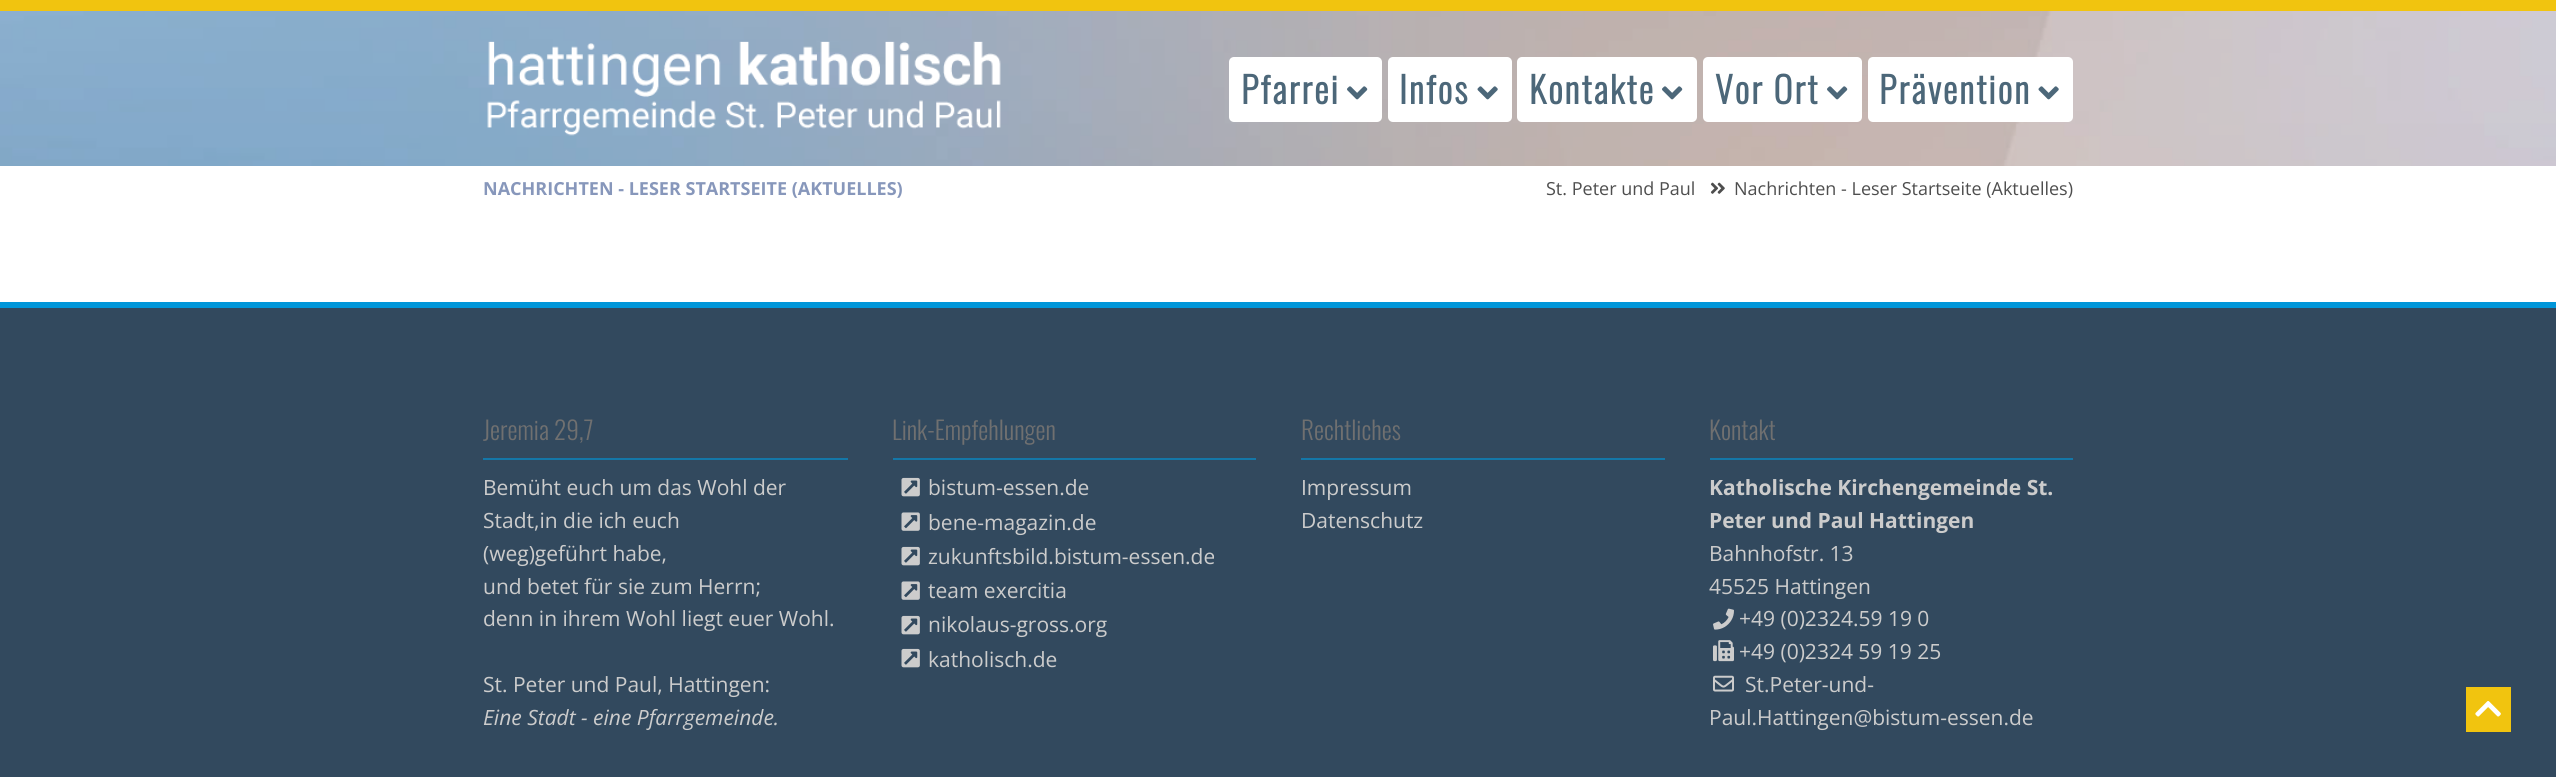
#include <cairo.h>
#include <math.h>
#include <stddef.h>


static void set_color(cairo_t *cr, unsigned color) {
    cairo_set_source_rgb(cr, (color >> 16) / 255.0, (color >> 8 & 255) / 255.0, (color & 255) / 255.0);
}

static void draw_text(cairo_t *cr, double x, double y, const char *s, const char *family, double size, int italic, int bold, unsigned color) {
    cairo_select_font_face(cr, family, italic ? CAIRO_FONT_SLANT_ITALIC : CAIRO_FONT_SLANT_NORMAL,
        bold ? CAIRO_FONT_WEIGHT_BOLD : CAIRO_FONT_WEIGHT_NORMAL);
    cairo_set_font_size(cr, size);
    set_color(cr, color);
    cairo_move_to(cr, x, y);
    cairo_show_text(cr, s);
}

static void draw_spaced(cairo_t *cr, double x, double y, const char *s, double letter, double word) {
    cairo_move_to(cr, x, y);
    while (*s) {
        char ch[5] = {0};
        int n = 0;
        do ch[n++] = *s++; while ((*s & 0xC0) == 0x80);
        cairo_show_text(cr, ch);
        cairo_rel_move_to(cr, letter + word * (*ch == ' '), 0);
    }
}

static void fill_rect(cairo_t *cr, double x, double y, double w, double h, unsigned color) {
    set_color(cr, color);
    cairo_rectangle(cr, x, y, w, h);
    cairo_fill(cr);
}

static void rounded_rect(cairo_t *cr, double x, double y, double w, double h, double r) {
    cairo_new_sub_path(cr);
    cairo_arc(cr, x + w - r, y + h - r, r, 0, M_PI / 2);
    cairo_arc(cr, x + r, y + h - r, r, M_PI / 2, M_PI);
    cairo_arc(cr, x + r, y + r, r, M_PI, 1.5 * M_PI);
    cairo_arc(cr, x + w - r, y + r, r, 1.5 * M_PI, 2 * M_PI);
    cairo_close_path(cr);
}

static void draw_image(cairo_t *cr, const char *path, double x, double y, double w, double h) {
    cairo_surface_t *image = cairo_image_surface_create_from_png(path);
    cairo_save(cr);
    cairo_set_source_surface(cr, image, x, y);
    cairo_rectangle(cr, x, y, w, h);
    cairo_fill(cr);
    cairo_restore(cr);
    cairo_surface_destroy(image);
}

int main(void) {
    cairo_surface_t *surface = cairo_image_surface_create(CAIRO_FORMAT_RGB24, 2556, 777);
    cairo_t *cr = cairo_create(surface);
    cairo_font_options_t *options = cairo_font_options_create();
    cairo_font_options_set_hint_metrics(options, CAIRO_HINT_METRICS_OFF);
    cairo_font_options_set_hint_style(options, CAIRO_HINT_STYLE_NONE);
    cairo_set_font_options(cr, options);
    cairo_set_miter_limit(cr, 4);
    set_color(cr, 0xFFFFFF);
    cairo_paint(cr);
    draw_image(cr, "assets/img1.png", 0, 11, 2556, 155);
    fill_rect(cr, 0, 0, 2556, 11, 0xF1C40F);
    draw_image(cr, "assets/img2.png", 487, 41, 514, 95);
    set_color(cr, 0xFFFFFF);
    rounded_rect(cr, 1229, 57, 153, 65, 5);
    cairo_fill(cr);
    cairo_select_font_face(cr, "Oswald", CAIRO_FONT_SLANT_NORMAL, CAIRO_FONT_WEIGHT_BOLD);
    cairo_set_font_size(cr, 36);
    set_color(cr, 0x4C6779);
    draw_spaced(cr, 1241, 104, "Pfarrei", 2.1, 0);
    draw_image(cr, "assets/img3.png", 1347, 86, 21, 14);
    set_color(cr, 0xFFFFFF);
    rounded_rect(cr, 1388, 57, 124, 65, 5);
    cairo_fill(cr);
    set_color(cr, 0x4C6779);
    draw_spaced(cr, 1399, 104, "Infos", 2.1, 0);
    draw_image(cr, "assets/img4.png", 1477, 86, 21, 14);
    set_color(cr, 0xFFFFFF);
    rounded_rect(cr, 1517, 57, 180, 65, 5);
    cairo_fill(cr);
    set_color(cr, 0x4C6779);
    draw_spaced(cr, 1529, 104, "Kontakte", 2.1, 0);
    draw_image(cr, "assets/img3.png", 1662, 86, 21, 14);
    set_color(cr, 0xFFFFFF);
    rounded_rect(cr, 1703, 57, 159, 65, 5);
    cairo_fill(cr);
    set_color(cr, 0x4C6779);
    draw_spaced(cr, 1715, 104, "Vor Ort", 2.1, 0);
    draw_image(cr, "assets/img3.png", 1827, 86, 21, 14);
    set_color(cr, 0xFFFFFF);
    rounded_rect(cr, 1868, 57, 205, 65, 5);
    cairo_fill(cr);
    set_color(cr, 0x4C6779);
    draw_spaced(cr, 1879, 104, "Prävention", 2.1, 0);
    draw_image(cr, "assets/img4.png", 2038, 86, 21, 14);
    draw_text(cr, 483, 195, "NACHRICHTEN - LESER STARTSEITE (AKTUELLES)", "Open Sans", 18, 0, 1, 0x8797BB);
    draw_text(cr, 1546, 195, "St. Peter und Paul", "Open Sans", 18, 0, 0, 0x4E4E4E);
    draw_image(cr, "assets/img5.png", 1710, 182, 15, 12);
    draw_text(cr, 1734, 195, "Nachrichten - Leser Startseite (Aktuelles)", "Open Sans", 18, 0, 0, 0x4E4E4E);
    fill_rect(cr, 0, 308, 2556, 469, 0x32495E);
    fill_rect(cr, 0, 302, 2556, 6, 0x0096D9);
    fill_rect(cr, 483, 458, 365, 2, 0x1477A8);
    draw_text(cr, 483, 440, "Jeremia 29,7", "Oswald Light", 25.25, 0, 0, 0x707070);
    draw_text(cr, 483, 495, "Bemüht euch um das Wohl der", "Open Sans", 21, 0, 0, 0xCCCCCC);
    draw_text(cr, 483, 528, "Stadt,in die ich euch", "Open Sans", 21, 0, 0, 0xCCCCCC);
    draw_text(cr, 483, 561, "(weg)geführt habe,", "Open Sans", 21, 0, 0, 0xCCCCCC);
    draw_text(cr, 483, 594, "und betet für sie zum Herrn;", "Open Sans", 21, 0, 0, 0xCCCCCC);
    draw_text(cr, 483, 626, "denn in ihrem Wohl liegt euer Wohl.", "Open Sans", 21, 0, 0, 0xCCCCCC);
    draw_text(cr, 483, 692, "St. Peter und Paul, Hattingen:", "Open Sans", 21, 0, 0, 0xCCCCCC);
    draw_text(cr, 483, 725, "Eine Stadt - eine Pfarrgemeinde.", "Open Sans", 21, 1, 0, 0xCCCCCC);
    fill_rect(cr, 893, 458, 363, 2, 0x1477A8);
    draw_text(cr, 892, 440, "Link-Empfehlungen", "Oswald Light", 25.25, 0, 0, 0x707070);
    draw_image(cr, "assets/img6.png", 901, 477, 19, 20);
    draw_text(cr, 928, 495, "bistum-essen.de", "Open Sans", 21, 0, 0, 0xCCCCCC);
    draw_image(cr, "assets/img7.png", 901, 512, 19, 19);
    draw_text(cr, 928, 530, "bene-magazin.de", "Open Sans", 21, 0, 0, 0xCCCCCC);
    draw_image(cr, "assets/img6.png", 901, 546, 19, 20);
    draw_text(cr, 928, 564, "zukunftsbild.bistum-essen.de", "Open Sans", 21, 0, 0, 0xCCCCCC);
    draw_image(cr, "assets/img7.png", 901, 581, 19, 19);
    draw_text(cr, 928, 598, "team exercitia", "Open Sans", 21, 0, 0, 0xCCCCCC);
    draw_image(cr, "assets/img6.png", 901, 615, 19, 20);
    draw_text(cr, 928, 632, "nikolaus-gross.org", "Open Sans", 21, 0, 0, 0xCCCCCC);
    draw_image(cr, "assets/img6.png", 901, 648, 19, 20);
    draw_text(cr, 928, 667, "katholisch.de", "Open Sans", 21, 0, 0, 0xCCCCCC);
    fill_rect(cr, 1301, 458, 364, 2, 0x1477A8);
    draw_text(cr, 1301, 440, "Rechtliches", "Oswald Light", 25.25, 0, 0, 0x707070);
    draw_text(cr, 1301, 495, "Impressum", "Open Sans", 21, 0, 0, 0xCCCCCC);
    draw_text(cr, 1301, 528, "Datenschutz", "Open Sans", 21, 0, 0, 0xCCCCCC);
    fill_rect(cr, 1710, 458, 363, 2, 0x1477A8);
    draw_text(cr, 1709, 440, "Kontakt", "Oswald Light", 25.25, 0, 0, 0x707070);
    draw_text(cr, 1709, 495, "Katholische Kirchengemeinde St.", "Open Sans", 21, 0, 1, 0xCCCCCC);
    draw_text(cr, 1709, 528, "Peter und Paul Hattingen", "Open Sans", 21, 0, 1, 0xCCCCCC);
    draw_text(cr, 1709, 561, "Bahnhofstr. 13", "Open Sans", 21, 0, 0, 0xCCCCCC);
    draw_text(cr, 1709, 594, "45525 Hattingen", "Open Sans", 21, 0, 0, 0xCCCCCC);
    draw_image(cr, "assets/img8.png", 1713, 608, 21, 22);
    draw_text(cr, 1739, 626, "+49 (0)2324.59 19 0", "Open Sans", 21, 0, 0, 0xCCCCCC);
    draw_image(cr, "assets/img9.png", 1713, 640, 21, 22);
    draw_text(cr, 1739, 659, "+49 (0)2324 59 19 25", "Open Sans", 21, 0, 0, 0xCCCCCC);
    draw_image(cr, "assets/img10.png", 1713, 675, 21, 17);
    draw_text(cr, 1745, 692, "St.Peter-und-", "Open Sans", 21, 0, 0, 0xCCCCCC);
    draw_text(cr, 1709, 725, "Paul.Hattingen@bistum-essen.de", "Open Sans", 21, 0, 0, 0xCCCCCC);
    fill_rect(cr, 2466, 687, 45, 45, 0xF1C40F);
    draw_image(cr, "assets/img11.png", 2475, 701, 26, 16);
    cairo_surface_write_to_png(surface, "output.png");
    cairo_font_options_destroy(options);
    cairo_destroy(cr);
    cairo_surface_destroy(surface);
    return 0;
}
